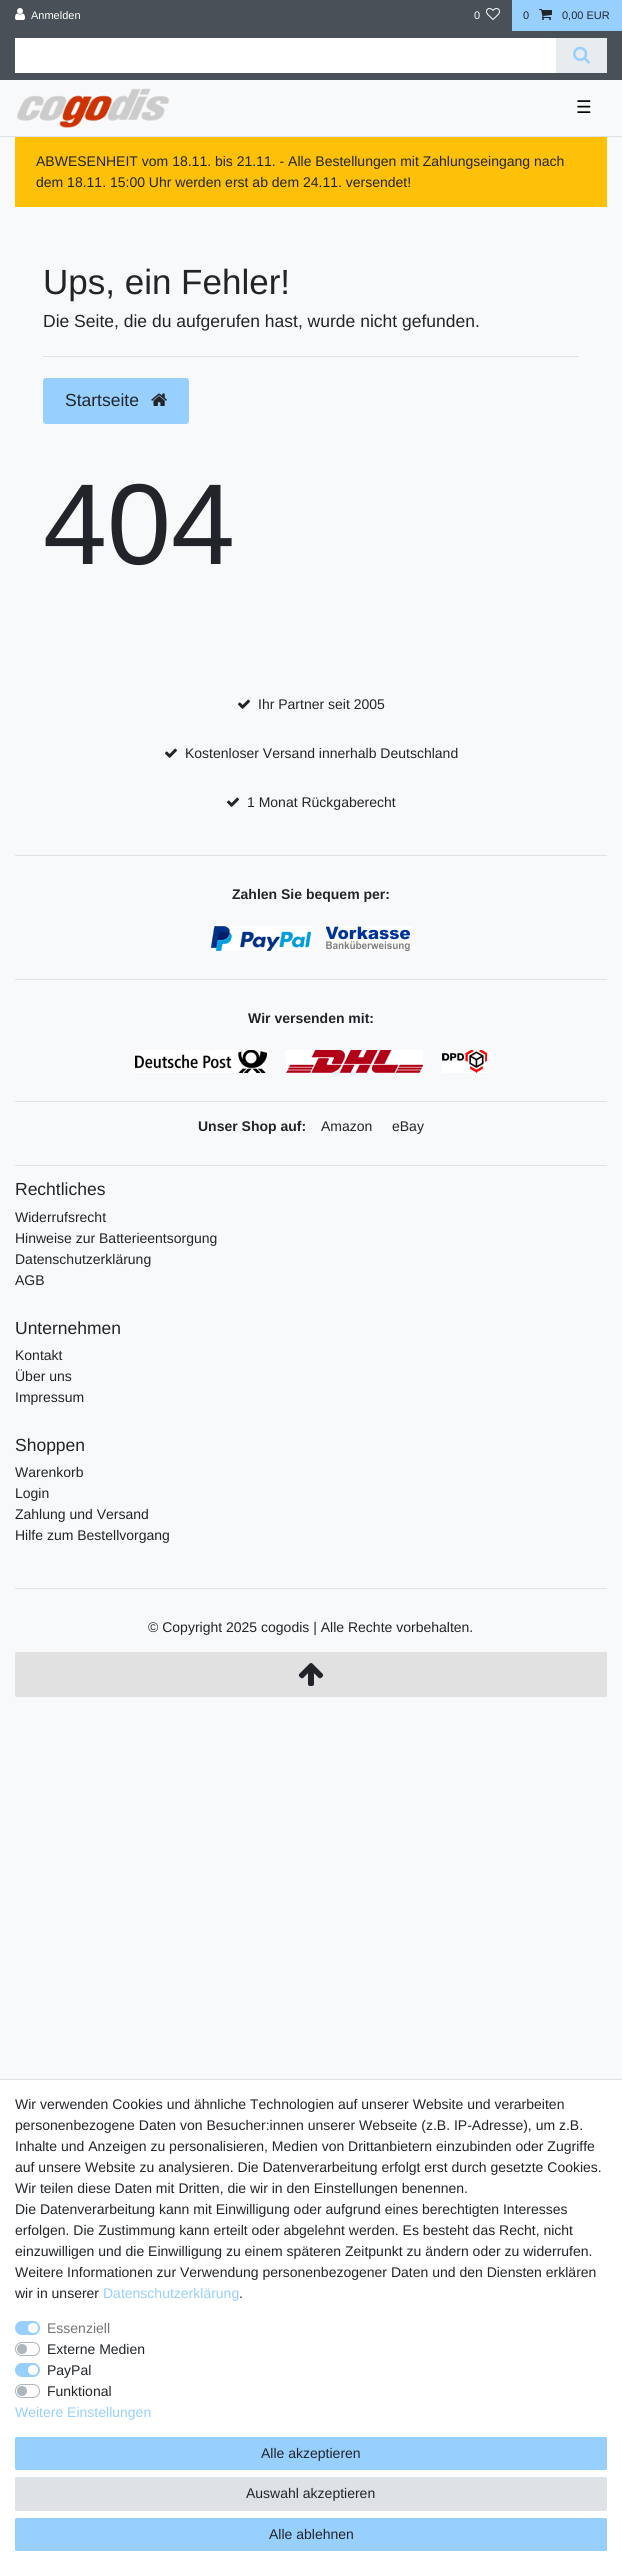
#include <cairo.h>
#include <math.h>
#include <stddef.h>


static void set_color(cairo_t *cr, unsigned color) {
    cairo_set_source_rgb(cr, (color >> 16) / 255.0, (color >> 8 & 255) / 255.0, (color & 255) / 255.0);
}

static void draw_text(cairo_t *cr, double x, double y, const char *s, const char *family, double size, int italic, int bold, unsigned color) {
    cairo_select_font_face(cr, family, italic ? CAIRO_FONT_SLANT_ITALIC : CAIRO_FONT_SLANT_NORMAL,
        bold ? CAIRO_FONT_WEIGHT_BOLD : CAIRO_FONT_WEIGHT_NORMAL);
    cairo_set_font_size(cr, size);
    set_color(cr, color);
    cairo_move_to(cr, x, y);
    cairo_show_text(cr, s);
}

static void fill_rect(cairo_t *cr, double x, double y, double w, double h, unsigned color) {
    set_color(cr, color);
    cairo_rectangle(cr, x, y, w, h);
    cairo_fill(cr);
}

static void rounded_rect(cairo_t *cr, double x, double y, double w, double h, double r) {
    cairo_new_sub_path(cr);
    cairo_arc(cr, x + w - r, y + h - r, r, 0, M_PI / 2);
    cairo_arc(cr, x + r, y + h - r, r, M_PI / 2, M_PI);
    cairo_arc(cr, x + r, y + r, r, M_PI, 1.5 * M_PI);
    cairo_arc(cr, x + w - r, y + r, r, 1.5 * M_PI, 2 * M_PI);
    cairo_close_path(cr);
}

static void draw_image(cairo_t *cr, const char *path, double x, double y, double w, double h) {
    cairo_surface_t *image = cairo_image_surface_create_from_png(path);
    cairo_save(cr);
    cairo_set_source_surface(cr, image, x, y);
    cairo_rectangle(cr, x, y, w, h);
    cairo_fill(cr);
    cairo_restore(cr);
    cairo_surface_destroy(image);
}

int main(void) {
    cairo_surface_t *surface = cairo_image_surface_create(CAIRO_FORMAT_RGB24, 622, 2572);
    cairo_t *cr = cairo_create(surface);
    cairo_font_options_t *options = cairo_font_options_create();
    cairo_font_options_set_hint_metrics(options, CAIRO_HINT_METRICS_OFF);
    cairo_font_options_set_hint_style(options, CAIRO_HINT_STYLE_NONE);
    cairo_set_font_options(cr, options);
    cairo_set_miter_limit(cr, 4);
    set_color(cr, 0xF8F9FA);
    cairo_paint(cr);
    fill_rect(cr, 0, 0, 622, 80, 0x495057);
    draw_image(cr, "assets/img1.png", 15, 8, 10, 12);
    draw_text(cr, 31, 19, "Anmelden", "Liberation Sans", 11, 0, 0, 0xFFFFFF);
    draw_text(cr, 474, 19, "0", "Liberation Sans", 11, 0, 0, 0xFFFFFF);
    draw_image(cr, "assets/img2.png", 486, 8, 14, 12);
    fill_rect(cr, 512, 0, 110, 31, 0x97D0FF);
    draw_text(cr, 523, 19, "0", "Liberation Sans", 11, 0, 0, 0x212529);
    draw_image(cr, "assets/img3.png", 539, 9, 13, 11);
    draw_text(cr, 562, 19, "0,00 EUR", "Liberation Sans", 11, 0, 0, 0x212529);
    fill_rect(cr, 15, 38, 541, 35, 0xFFFFFF);
    fill_rect(cr, 556, 38, 51, 35, 0xE9ECEF);
    draw_image(cr, "assets/img4.png", 573, 46, 17, 18);
    fill_rect(cr, 0, 136, 622, 1, 0xDEE2E6);
    draw_image(cr, "assets/img5.png", 17, 88, 153, 40);
    draw_text(cr, 576, 113, "☰", "DejaVu Sans", 17.5, 0, 0, 0x000000);
    fill_rect(cr, 15, 137, 592, 70, 0xFFC107);
    draw_text(cr, 36, 166, "ABWESENHEIT vom 18.11. bis 21.11. - Alle Bestellungen mit Zahlungseingang nach", "Liberation Sans", 14, 0, 0, 0x212529);
    draw_text(cr, 36, 187, "dem 18.11. 15:00 Uhr werden erst ab dem 24.11. versendet!", "Liberation Sans", 14, 0, 0, 0x212529);
    draw_text(cr, 43, 294, "Ups, ein Fehler!", "Liberation Sans", 35, 0, 0, 0x212529);
    draw_text(cr, 43, 327, "Die Seite, die du aufgerufen hast, wurde nicht gefunden.", "Liberation Sans", 17.5, 0, 0, 0x212529);
    fill_rect(cr, 43, 356, 536, 1, 0xDEE2E6);
    set_color(cr, 0x97D0FF);
    rounded_rect(cr, 43.5, 378.5, 145, 45, 2.5);
    cairo_fill_preserve(cr);
    cairo_set_line_width(cr, 1);
    cairo_stroke(cr);
    draw_text(cr, 65, 406, "Startseite", "Liberation Sans", 17.5, 0, 0, 0x212529);
    draw_image(cr, "assets/img6.png", 151, 393, 16, 13);
    draw_text(cr, 43, 564, "404", "Liberation Sans", 115, 0, 0, 0x212529);
    draw_image(cr, "assets/img7.png", 238, 699, 12, 10);
    draw_text(cr, 258, 709, "Ihr Partner seit 2005", "Liberation Sans", 14, 0, 0, 0x212529);
    draw_image(cr, "assets/img7.png", 165, 748, 12, 10);
    draw_text(cr, 185, 758, "Kostenloser Versand innerhalb Deutschland", "Liberation Sans", 14, 0, 0, 0x212529);
    draw_image(cr, "assets/img7.png", 227, 797, 12, 10);
    draw_text(cr, 247, 807, "1 Monat Rückgaberecht", "Liberation Sans", 14, 0, 0, 0x212529);
    fill_rect(cr, 15, 855, 592, 1, 0xDEE2E6);
    draw_text(cr, 232, 899, "Zahlen Sie bequem per:", "Liberation Sans", 14, 0, 1, 0x212529);
    draw_image(cr, "assets/img8.png", 211, 926, 100, 25);
    draw_image(cr, "assets/img9.png", 326, 926, 85, 25);
    fill_rect(cr, 15, 979, 592, 1, 0xDEE2E6);
    draw_text(cr, 248, 1023, "Wir versenden mit:", "Liberation Sans", 14, 0, 1, 0x212529);
    draw_image(cr, "assets/img10.png", 135, 1050, 132, 23);
    draw_image(cr, "assets/img11.png", 286, 1050, 137, 23);
    draw_image(cr, "assets/img12.png", 442, 1050, 45, 23);
    fill_rect(cr, 15, 1101, 592, 1, 0xDEE2E6);
    draw_text(cr, 198, 1131, "Unser Shop auf:", "Liberation Sans", 14, 0, 1, 0x212529);
    draw_text(cr, 321, 1131, "Amazon", "Liberation Sans", 14, 0, 0, 0x212529);
    draw_text(cr, 392, 1131, "eBay", "Liberation Sans", 14, 0, 0, 0x212529);
    fill_rect(cr, 15, 1165, 592, 1, 0xDEE2E6);
    draw_text(cr, 15, 1195, "Rechtliches", "Liberation Sans", 17.5, 0, 0, 0x212529);
    draw_text(cr, 15, 1222, "Widerrufsrecht", "Liberation Sans", 14, 0, 0, 0x212529);
    draw_text(cr, 15, 1243, "Hinweise zur Batterieentsorgung", "Liberation Sans", 14, 0, 0, 0x212529);
    draw_text(cr, 15, 1264, "Datenschutzerklärung", "Liberation Sans", 14, 0, 0, 0x212529);
    draw_text(cr, 15, 1285, "AGB", "Liberation Sans", 14, 0, 0, 0x212529);
    draw_text(cr, 15, 1334, "Unternehmen", "Liberation Sans", 17.5, 0, 0, 0x212529);
    draw_text(cr, 15, 1360, "Kontakt", "Liberation Sans", 14, 0, 0, 0x212529);
    draw_text(cr, 15, 1381, "Über uns", "Liberation Sans", 14, 0, 0, 0x212529);
    draw_text(cr, 15, 1402, "Impressum", "Liberation Sans", 14, 0, 0, 0x212529);
    draw_text(cr, 15, 1451, "Shoppen", "Liberation Sans", 17.5, 0, 0, 0x212529);
    draw_text(cr, 15, 1477, "Warenkorb", "Liberation Sans", 14, 0, 0, 0x212529);
    draw_text(cr, 15, 1498, "Login", "Liberation Sans", 14, 0, 0, 0x212529);
    draw_text(cr, 15, 1519, "Zahlung und Versand", "Liberation Sans", 14, 0, 0, 0x212529);
    draw_text(cr, 15, 1540, "Hilfe zum Bestellvorgang", "Liberation Sans", 14, 0, 0, 0x212529);
    fill_rect(cr, 15, 1588, 592, 1, 0xDEE2E6);
    draw_text(cr, 148, 1632, "© Copyright 2025 cogodis | Alle Rechte vorbehalten.", "Liberation Sans", 14, 0, 0, 0x212529);
    fill_rect(cr, 0, 2080, 622, 492, 0xFFFFFF);
    fill_rect(cr, 0, 2079, 622, 1, 0xDEE2E6);
    draw_text(cr, 15, 2109, "Wir verwenden Cookies und ähnliche Technologien auf unserer Website und verarbeiten", "Liberation Sans", 14, 0, 0, 0x212529);
    draw_text(cr, 15, 2130, "personenbezogene Daten von Besucher:innen unserer Webseite (z.B. IP-Adresse), um z.B.", "Liberation Sans", 14, 0, 0, 0x212529);
    draw_text(cr, 15, 2151, "Inhalte und Anzeigen zu personalisieren, Medien von Drittanbietern einzubinden oder Zugriffe", "Liberation Sans", 14, 0, 0, 0x212529);
    draw_text(cr, 15, 2172, "auf unsere Website zu analysieren. Die Datenverarbeitung erfolgt erst durch gesetzte Cookies.", "Liberation Sans", 14, 0, 0, 0x212529);
    draw_text(cr, 15, 2193, "Wir teilen diese Daten mit Dritten, die wir in den Einstellungen benennen.", "Liberation Sans", 14, 0, 0, 0x212529);
    draw_text(cr, 15, 2214, "Die Datenverarbeitung kann mit Einwilligung oder aufgrund eines berechtigten Interesses", "Liberation Sans", 14, 0, 0, 0x212529);
    draw_text(cr, 15, 2235, "erfolgen. Die Zustimmung kann erteilt oder abgelehnt werden. Es besteht das Recht, nicht", "Liberation Sans", 14, 0, 0, 0x212529);
    draw_text(cr, 15, 2256, "einzuwilligen und die Einwilligung zu einem späteren Zeitpunkt zu ändern oder zu widerrufen.", "Liberation Sans", 14, 0, 0, 0x212529);
    draw_text(cr, 15, 2277, "Weitere Informationen zur Verwendung personenbezogener Daten und den Diensten erklären", "Liberation Sans", 14, 0, 0, 0x212529);
    draw_text(cr, 15, 2298, "wir in unserer", "Liberation Sans", 14, 0, 0, 0x212529);
    draw_text(cr, 103, 2298, "Datenschutzerklärung", "Liberation Sans", 14, 0, 0, 0x97D0FF);
    draw_text(cr, 239, 2298, ".", "Liberation Sans", 14, 0, 0, 0x212529);
    set_color(cr, 0x97D0FF);
    rounded_rect(cr, 15.5, 2321.5, 24, 13, 6.5);
    cairo_fill_preserve(cr);
    cairo_stroke(cr);
    draw_text(cr, 47, 2333, "Essenziell", "Liberation Sans", 14, 0, 0, 0x767676);
    set_color(cr, 0xFFFFFF);
    cairo_new_path(cr);
    cairo_arc(cr, 33, 2328, 5, 0, 2 * M_PI);
    cairo_fill(cr);
    rounded_rect(cr, 15.5, 2342.5, 24, 13, 6.5);
    set_color(cr, 0xADB5BD);
    cairo_stroke(cr);
    draw_text(cr, 47, 2354, "Externe Medien", "Liberation Sans", 14, 0, 0, 0x212529);
    set_color(cr, 0xADB5BD);
    cairo_new_path(cr);
    cairo_arc(cr, 22, 2349, 5, 0, 2 * M_PI);
    cairo_fill(cr);
    set_color(cr, 0x97D0FF);
    rounded_rect(cr, 15.5, 2363.5, 24, 13, 6.5);
    cairo_fill_preserve(cr);
    cairo_stroke(cr);
    draw_text(cr, 47, 2375, "PayPal", "Liberation Sans", 14, 0, 0, 0x212529);
    set_color(cr, 0xFFFFFF);
    cairo_new_path(cr);
    cairo_arc(cr, 33, 2370, 5, 0, 2 * M_PI);
    cairo_fill(cr);
    rounded_rect(cr, 15.5, 2384.5, 24, 13, 6.5);
    set_color(cr, 0xADB5BD);
    cairo_stroke(cr);
    draw_text(cr, 47, 2396, "Funktional", "Liberation Sans", 14, 0, 0, 0x212529);
    set_color(cr, 0xADB5BD);
    cairo_new_path(cr);
    cairo_arc(cr, 22, 2391, 5, 0, 2 * M_PI);
    cairo_fill(cr);
    draw_text(cr, 15, 2417, "Weitere Einstellungen", "Liberation Sans", 14, 0, 0, 0x97D0FF);
    rounded_rect(cr, 15.5, 2437.5, 591, 32, 1);
    cairo_fill_preserve(cr);
    cairo_stroke(cr);
    draw_text(cr, 261, 2458, "Alle akzeptieren", "Liberation Sans", 14, 0, 0, 0x212529);
    set_color(cr, 0xDEE2E6);
    rounded_rect(cr, 15.5, 2477.5, 591, 33, 1);
    cairo_fill_preserve(cr);
    cairo_stroke(cr);
    draw_text(cr, 246, 2498, "Auswahl akzeptieren", "Liberation Sans", 14, 0, 0, 0x212529);
    set_color(cr, 0x97D0FF);
    rounded_rect(cr, 15.5, 2518.5, 591, 32, 1);
    cairo_fill_preserve(cr);
    cairo_stroke(cr);
    draw_text(cr, 269, 2539, "Alle ablehnen", "Liberation Sans", 14, 0, 0, 0x212529);
    set_color(cr, 0xE1E1E1);
    rounded_rect(cr, 15.5, 1652.5, 591, 44, 1);
    cairo_fill_preserve(cr);
    cairo_stroke(cr);
    draw_image(cr, "assets/img13.png", 298, 1663, 26, 23);
    cairo_surface_write_to_png(surface, "output.png");
    cairo_font_options_destroy(options);
    cairo_destroy(cr);
    cairo_surface_destroy(surface);
    return 0;
}
